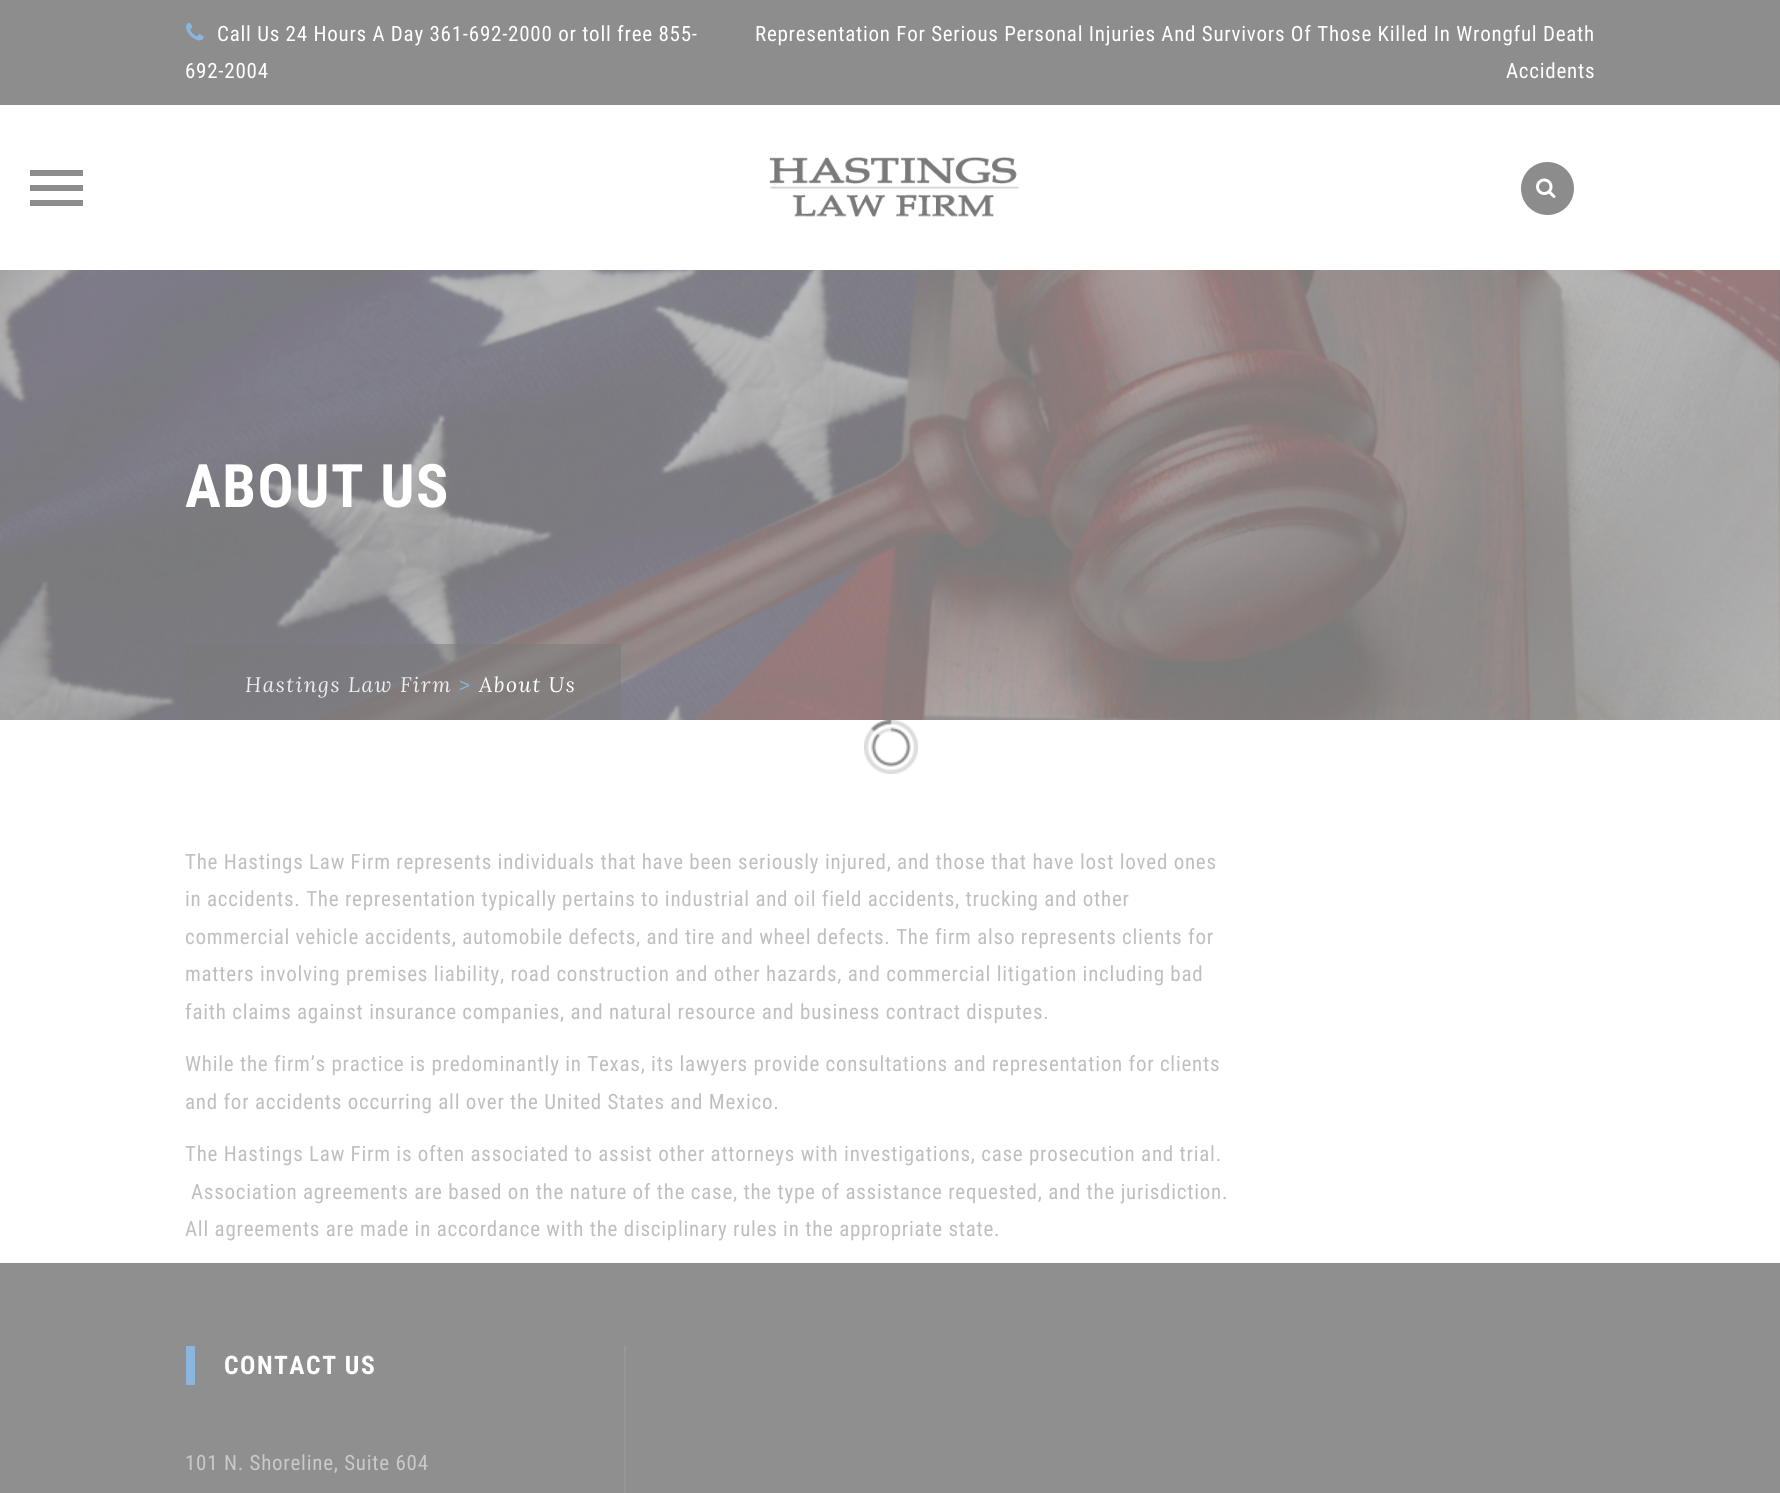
#include <cairo.h>
#include <math.h>
#include <stddef.h>


static void set_color(cairo_t *cr, unsigned color) {
    cairo_set_source_rgb(cr, (color >> 16) / 255.0, (color >> 8 & 255) / 255.0, (color & 255) / 255.0);
}

static void draw_spaced(cairo_t *cr, double x, double y, const char *s, double letter, double word) {
    cairo_move_to(cr, x, y);
    while (*s) {
        char ch[5] = {0};
        int n = 0;
        do ch[n++] = *s++; while ((*s & 0xC0) == 0x80);
        cairo_show_text(cr, ch);
        cairo_rel_move_to(cr, letter + word * (*ch == ' '), 0);
    }
}

static void fill_rect(cairo_t *cr, double x, double y, double w, double h, unsigned color) {
    set_color(cr, color);
    cairo_rectangle(cr, x, y, w, h);
    cairo_fill(cr);
}

static void draw_image(cairo_t *cr, const char *path, double x, double y, double w, double h) {
    cairo_surface_t *image = cairo_image_surface_create_from_png(path);
    cairo_save(cr);
    cairo_set_source_surface(cr, image, x, y);
    cairo_rectangle(cr, x, y, w, h);
    cairo_fill(cr);
    cairo_restore(cr);
    cairo_surface_destroy(image);
}

int main(void) {
    cairo_surface_t *surface = cairo_image_surface_create(CAIRO_FORMAT_RGB24, 1780, 1493);
    cairo_t *cr = cairo_create(surface);
    cairo_font_options_t *options = cairo_font_options_create();
    cairo_font_options_set_hint_metrics(options, CAIRO_HINT_METRICS_OFF);
    cairo_font_options_set_hint_style(options, CAIRO_HINT_STYLE_NONE);
    cairo_set_font_options(cr, options);
    cairo_set_miter_limit(cr, 4);
    set_color(cr, 0xFFFFFF);
    cairo_paint(cr);
    fill_rect(cr, 0, 0, 1780, 105, 0x8D8D8D);
    draw_image(cr, "assets/img1.png", 186, 22, 18, 19);
    cairo_select_font_face(cr, "Roboto Condensed", CAIRO_FONT_SLANT_NORMAL, CAIRO_FONT_WEIGHT_NORMAL);
    cairo_set_font_size(cr, 21);
    set_color(cr, 0xFFFFFF);
    draw_spaced(cr, 217, 41, "Call Us 24 Hours A Day 361-692-2000 or toll free 855-", 0.75, 0);
    draw_spaced(cr, 185, 78, "692-2004", 0.75, 0);
    draw_spaced(cr, 755, 41, "Representation For Serious Personal Injuries And Survivors Of Those Killed In Wrongful Death", 0.75, 0);
    draw_spaced(cr, 1506, 78, "Accidents", 0.75, 0);
    fill_rect(cr, 30, 185, 53, 6, 0x8C8C8C);
    fill_rect(cr, 30, 170, 53, 6, 0x8C8C8C);
    fill_rect(cr, 30, 200, 53, 6, 0x8C8C8C);
    draw_image(cr, "assets/img2.png", 769, 157, 250, 60);
    cairo_arc(cr, 1547.5, 188.5, 26.5, 0, 2 * M_PI);
    cairo_fill(cr);
    draw_image(cr, "assets/img3.png", 1536, 178, 20, 20);
    draw_image(cr, "assets/img4.png", 0, 270, 1780, 450);
    cairo_select_font_face(cr, "Roboto Condensed", CAIRO_FONT_SLANT_NORMAL, CAIRO_FONT_WEIGHT_BOLD);
    cairo_set_font_size(cr, 60);
    set_color(cr, 0xFFFFFF);
    draw_spaced(cr, 185, 507, "ABOUT US", 1.5, 0);
    cairo_set_source_rgba(cr, 0.478, 0.478, 0.478, 0.54);
    cairo_rectangle(cr, 186, 644, 435, 76);
    cairo_fill(cr);
    cairo_select_font_face(cr, "Lora", CAIRO_FONT_SLANT_ITALIC, CAIRO_FONT_WEIGHT_NORMAL);
    cairo_set_font_size(cr, 21);
    set_color(cr, 0xEDEDED);
    draw_spaced(cr, 245, 692, "Hastings Law Firm", 1.5, 0);
    set_color(cr, 0x8AB6DD);
    draw_spaced(cr, 459, 692, ">", 1.5, 0);
    set_color(cr, 0xFFFFFF);
    draw_spaced(cr, 479, 692, "About Us", 1.5, 0);
    cairo_select_font_face(cr, "Roboto Condensed", CAIRO_FONT_SLANT_NORMAL, CAIRO_FONT_WEIGHT_NORMAL);
    set_color(cr, 0xBFBFBF);
    draw_spaced(cr, 185, 869, "The Hastings Law Firm represents individuals that have been seriously injured, and those that have lost loved ones", 0.75, 0);
    draw_spaced(cr, 185, 906, "in accidents. The representation typically pertains to industrial and oil field accidents, trucking and other", 0.75, 0);
    draw_spaced(cr, 185, 944, "commercial vehicle accidents, automobile defects, and tire and wheel defects. The firm also represents clients for", 0.75, 0);
    draw_spaced(cr, 185, 981, "matters involving premises liability, road construction and other hazards, and commercial litigation including bad", 0.75, 0);
    draw_spaced(cr, 185, 1019, "faith claims against insurance companies, and natural resource and business contract disputes.", 0.75, 0);
    draw_spaced(cr, 185, 1071, "While the firm’s practice is predominantly in Texas, its lawyers provide consultations and representation for clients", 0.75, 0);
    draw_spaced(cr, 185, 1109, "and for accidents occurring all over the United States and Mexico.", 0.75, 0);
    draw_spaced(cr, 185, 1161, "The Hastings Law Firm is often associated to assist other attorneys with investigations, case prosecution and trial.", 0.75, 0);
    draw_spaced(cr, 191, 1199, "Association agreements are based on the nature of the case, the type of assistance requested, and the jurisdiction.", 0.75, 0);
    draw_spaced(cr, 185, 1236, "All agreements are made in accordance with the disciplinary rules in the appropriate state.", 0.75, 0);
    fill_rect(cr, 0, 1263, 1780, 230, 0x8F8F8F);
    fill_rect(cr, 186, 1346, 9, 39, 0x8AB6DD);
    cairo_select_font_face(cr, "Roboto Condensed", CAIRO_FONT_SLANT_NORMAL, CAIRO_FONT_WEIGHT_BOLD);
    cairo_set_font_size(cr, 25.5);
    set_color(cr, 0xFFFFFF);
    draw_spaced(cr, 224, 1374, "CONTACT US", 1.5, 0);
    fill_rect(cr, 624, 1346, 2, 147, 0x979797);
    cairo_select_font_face(cr, "Roboto Condensed", CAIRO_FONT_SLANT_NORMAL, CAIRO_FONT_WEIGHT_NORMAL);
    cairo_set_font_size(cr, 21);
    set_color(cr, 0xC9C9C9);
    draw_spaced(cr, 185, 1470, "101 N. Shoreline, Suite 604", 0.75, 0);
    draw_image(cr, "assets/img5.png", 864, 720, 54, 54);
    cairo_surface_write_to_png(surface, "output.png");
    cairo_font_options_destroy(options);
    cairo_destroy(cr);
    cairo_surface_destroy(surface);
    return 0;
}
